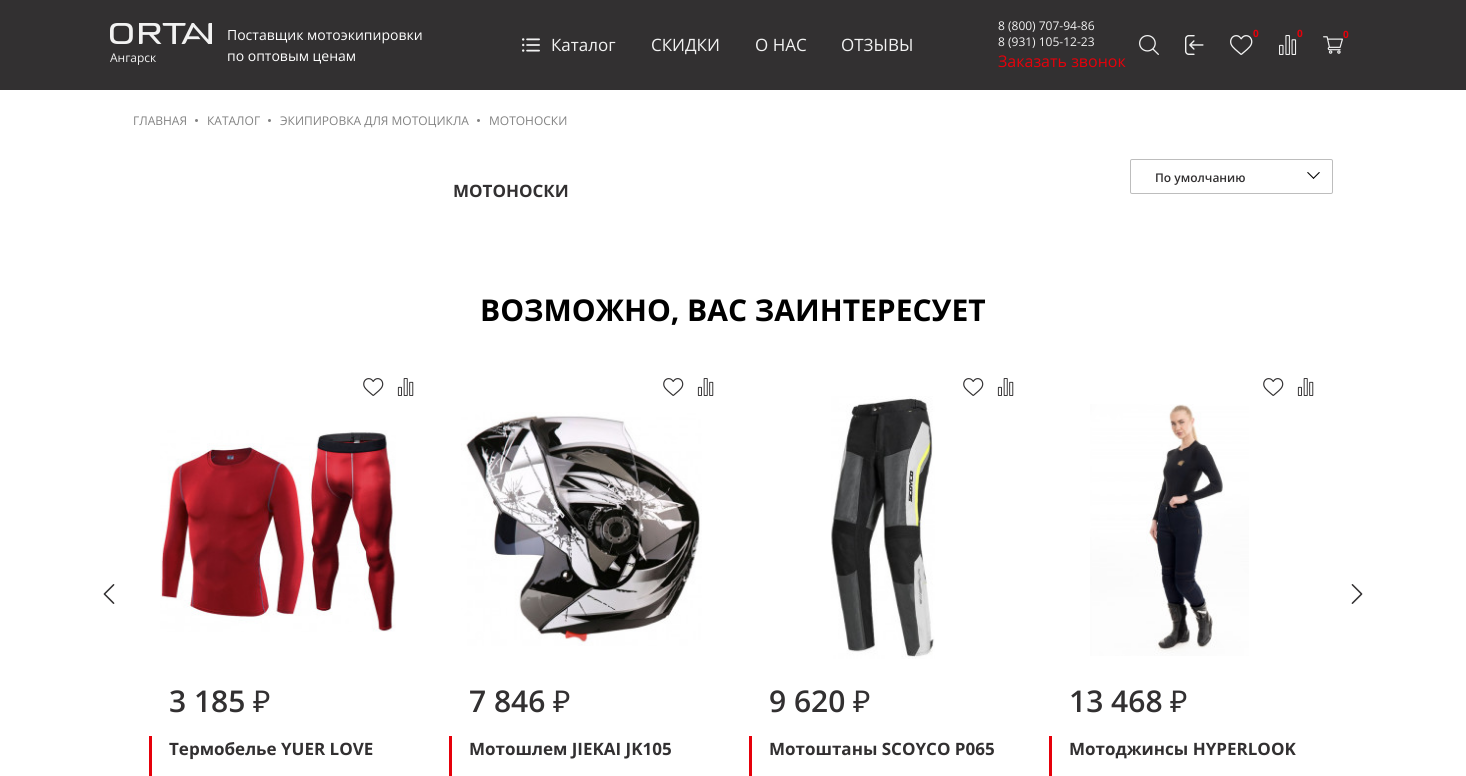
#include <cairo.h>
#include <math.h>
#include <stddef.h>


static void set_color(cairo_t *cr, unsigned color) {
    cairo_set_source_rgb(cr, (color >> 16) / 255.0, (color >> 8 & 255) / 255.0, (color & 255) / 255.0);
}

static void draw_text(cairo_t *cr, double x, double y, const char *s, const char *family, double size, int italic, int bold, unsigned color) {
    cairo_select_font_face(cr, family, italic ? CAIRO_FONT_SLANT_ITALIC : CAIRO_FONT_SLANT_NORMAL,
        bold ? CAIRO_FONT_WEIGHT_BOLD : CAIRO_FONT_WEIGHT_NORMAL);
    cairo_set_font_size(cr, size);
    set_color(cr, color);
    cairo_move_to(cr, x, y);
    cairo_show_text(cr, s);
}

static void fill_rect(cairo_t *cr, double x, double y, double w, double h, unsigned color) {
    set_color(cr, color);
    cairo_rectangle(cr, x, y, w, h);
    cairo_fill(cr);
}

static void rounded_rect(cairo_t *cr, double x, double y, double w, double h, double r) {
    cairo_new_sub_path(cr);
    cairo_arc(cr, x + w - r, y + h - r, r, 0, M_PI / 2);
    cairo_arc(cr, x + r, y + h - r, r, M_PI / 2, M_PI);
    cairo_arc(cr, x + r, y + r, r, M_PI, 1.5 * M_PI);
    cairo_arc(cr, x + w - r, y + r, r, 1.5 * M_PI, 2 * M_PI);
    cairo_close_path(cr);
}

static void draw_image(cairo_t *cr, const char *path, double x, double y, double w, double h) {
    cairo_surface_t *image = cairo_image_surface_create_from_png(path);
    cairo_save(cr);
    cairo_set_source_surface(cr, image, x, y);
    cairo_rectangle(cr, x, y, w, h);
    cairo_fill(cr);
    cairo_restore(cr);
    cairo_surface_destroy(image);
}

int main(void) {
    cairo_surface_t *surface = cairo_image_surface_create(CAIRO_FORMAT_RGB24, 1466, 776);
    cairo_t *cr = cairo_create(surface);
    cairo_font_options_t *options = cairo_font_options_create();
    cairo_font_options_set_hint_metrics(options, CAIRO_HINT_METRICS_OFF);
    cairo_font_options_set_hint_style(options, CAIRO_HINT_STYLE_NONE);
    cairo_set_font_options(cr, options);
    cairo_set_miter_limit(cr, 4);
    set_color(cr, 0xFFFFFF);
    cairo_paint(cr);
    fill_rect(cr, 0, 0, 1466, 90, 0x323031);
    draw_text(cr, 227, 40, "Поставщик мотоэкипировки", "Open Sans", 14, 0, 0, 0xFFFFFF);
    draw_text(cr, 227, 61, "по оптовым ценам", "Open Sans", 14, 0, 0, 0xFFFFFF);
    draw_image(cr, "assets/img1.png", 522, 38, 18, 14);
    draw_text(cr, 551, 51, "Каталог", "Open Sans", 17, 0, 0, 0xF2F2F2);
    draw_text(cr, 651, 51, "СКИДКИ", "Open Sans", 17, 0, 0, 0xF2F2F2);
    draw_text(cr, 755, 51, "О НАС", "Open Sans", 17, 0, 0, 0xF2F2F2);
    draw_text(cr, 841, 51, "ОТЗЫВЫ", "Open Sans", 17, 0, 0, 0xF2F2F2);
    draw_text(cr, 998, 30, "8 (800) 707-94-86", "Open Sans", 12, 0, 0, 0xF2F2F2);
    draw_text(cr, 998, 46, "8 (931) 105-12-23", "Open Sans", 12, 0, 0, 0xF2F2F2);
    draw_text(cr, 998, 67, "Заказать звонок", "Open Sans", 16, 0, 0, 0xE6000A);
    draw_image(cr, "assets/img2.png", 1139, 35, 20, 20);
    draw_image(cr, "assets/img3.png", 1185, 35, 19, 20);
    draw_text(cr, 1253, 37, "0", "Open Sans", 10, 0, 1, 0xE6000A);
    draw_image(cr, "assets/img4.png", 1230, 35, 23, 20);
    draw_text(cr, 1297, 37, "0", "Open Sans", 10, 0, 1, 0xE6000A);
    draw_image(cr, "assets/img5.png", 1279, 35, 18, 20);
    draw_text(cr, 1343, 38, "0", "Open Sans", 10, 0, 1, 0xE6000A);
    draw_image(cr, "assets/img6.png", 1323, 36, 20, 18);
    draw_image(cr, "assets/img7.png", 110, 23, 102, 21);
    draw_text(cr, 110, 62, "Ангарск", "Open Sans", 12, 0, 0, 0xF2F2F2);
    draw_text(cr, 133, 125, "ГЛАВНАЯ", "Open Sans", 12, 0, 0, 0x828282);
    cairo_new_path(cr);
    cairo_arc(cr, 196.5, 120.5, 1.5, 0, 2 * M_PI);
    cairo_fill(cr);
    draw_text(cr, 207, 125, "КАТАЛОГ", "Open Sans", 12, 0, 0, 0x828282);
    cairo_new_path(cr);
    cairo_arc(cr, 269.5, 120.5, 1.5, 0, 2 * M_PI);
    cairo_fill(cr);
    draw_text(cr, 280, 125, "ЭКИПИРОВКА ДЛЯ МОТОЦИКЛА", "Open Sans", 12, 0, 0, 0x828282);
    cairo_new_path(cr);
    cairo_arc(cr, 478.5, 120.5, 1.5, 0, 2 * M_PI);
    cairo_fill(cr);
    draw_text(cr, 489, 125, "МОТОНОСКИ", "Open Sans", 12, 0, 0, 0x828282);
    rounded_rect(cr, 1130.5, 159.5, 202, 34, 1.5);
    set_color(cr, 0xBDBDBD);
    cairo_set_line_width(cr, 1);
    cairo_stroke(cr);
    draw_text(cr, 1155, 182, "По умолчанию", "Open Sans SemiBold", 12, 0, 0, 0x323031);
    set_color(cr, 0x000000);
    cairo_new_path(cr);
    cairo_move_to(cr, 1319, 172);
    cairo_line_to(cr, 1320, 172.5);
    cairo_line_to(cr, 1313.5, 179);
    cairo_line_to(cr, 1313, 178);
    cairo_close_path(cr);
    cairo_fill(cr);
    cairo_new_path(cr);
    cairo_move_to(cr, 1308, 172);
    cairo_line_to(cr, 1314, 178);
    cairo_line_to(cr, 1313.5, 179);
    cairo_line_to(cr, 1307, 172.5);
    cairo_close_path(cr);
    cairo_fill(cr);
    draw_text(cr, 453, 197, "МОТОНОСКИ", "Open Sans", 17, 0, 1, 0x323031);
    draw_text(cr, 480, 321, "ВОЗМОЖНО, ВАС ЗАИНТЕРЕСУЕТ", "Open Sans", 30, 0, 1, 0x000000);
    draw_image(cr, "assets/img8.png", 103, 584, 12, 20);
    draw_image(cr, "assets/img9.png", 1351, 584, 12, 20);
    draw_image(cr, "assets/img10.png", 363, 378, 21, 18);
    draw_image(cr, "assets/img11.png", 397, 378, 17, 18);
    draw_image(cr, "assets/img12.png", 160, 430, 236, 202);
    draw_text(cr, 169, 712, "3 185", "Open Sans SemiBold", 30, 0, 0, 0x323031);
    draw_text(cr, 253, 712, "₽", "Noto Sans", 30, 0, 0, 0x323031);
    fill_rect(cr, 149, 736, 3, 40, 0xE6000A);
    draw_text(cr, 169, 755, "Термобелье YUER LOVE", "Open Sans", 17, 0, 1, 0x323031);
    draw_image(cr, "assets/img10.png", 663, 378, 21, 18);
    draw_image(cr, "assets/img11.png", 697, 378, 17, 18);
    draw_image(cr, "assets/img13.png", 461, 412, 241, 234);
    draw_text(cr, 469, 712, "7 846", "Open Sans SemiBold", 30, 0, 0, 0x323031);
    draw_text(cr, 553, 712, "₽", "Noto Sans", 30, 0, 0, 0x323031);
    fill_rect(cr, 449, 736, 3, 40, 0xE6000A);
    draw_text(cr, 469, 755, "Мотошлем JIEKAI JK105", "Open Sans", 17, 0, 1, 0x323031);
    draw_image(cr, "assets/img10.png", 963, 378, 21, 18);
    draw_image(cr, "assets/img11.png", 997, 378, 17, 18);
    draw_image(cr, "assets/img14.png", 831, 396, 104, 263);
    draw_text(cr, 769, 712, "9 620", "Open Sans SemiBold", 30, 0, 0, 0x323031);
    draw_text(cr, 853, 712, "₽", "Noto Sans", 30, 0, 0, 0x323031);
    fill_rect(cr, 749, 736, 3, 40, 0xE6000A);
    draw_text(cr, 769, 755, "Мотоштаны SCOYCO P065", "Open Sans", 17, 0, 1, 0x323031);
    draw_image(cr, "assets/img10.png", 1263, 378, 21, 18);
    draw_image(cr, "assets/img11.png", 1297, 378, 17, 18);
    draw_image(cr, "assets/img15.png", 1090, 404, 159, 252);
    draw_text(cr, 1069, 712, "13 468", "Open Sans SemiBold", 30, 0, 0, 0x323031);
    draw_text(cr, 1170, 712, "₽", "Noto Sans", 30, 0, 0, 0x323031);
    fill_rect(cr, 1049, 736, 3, 40, 0xE6000A);
    draw_text(cr, 1069, 755, "Мотоджинсы HYPERLOOK", "Open Sans", 17, 0, 1, 0x323031);
    cairo_surface_write_to_png(surface, "output.png");
    cairo_font_options_destroy(options);
    cairo_destroy(cr);
    cairo_surface_destroy(surface);
    return 0;
}
